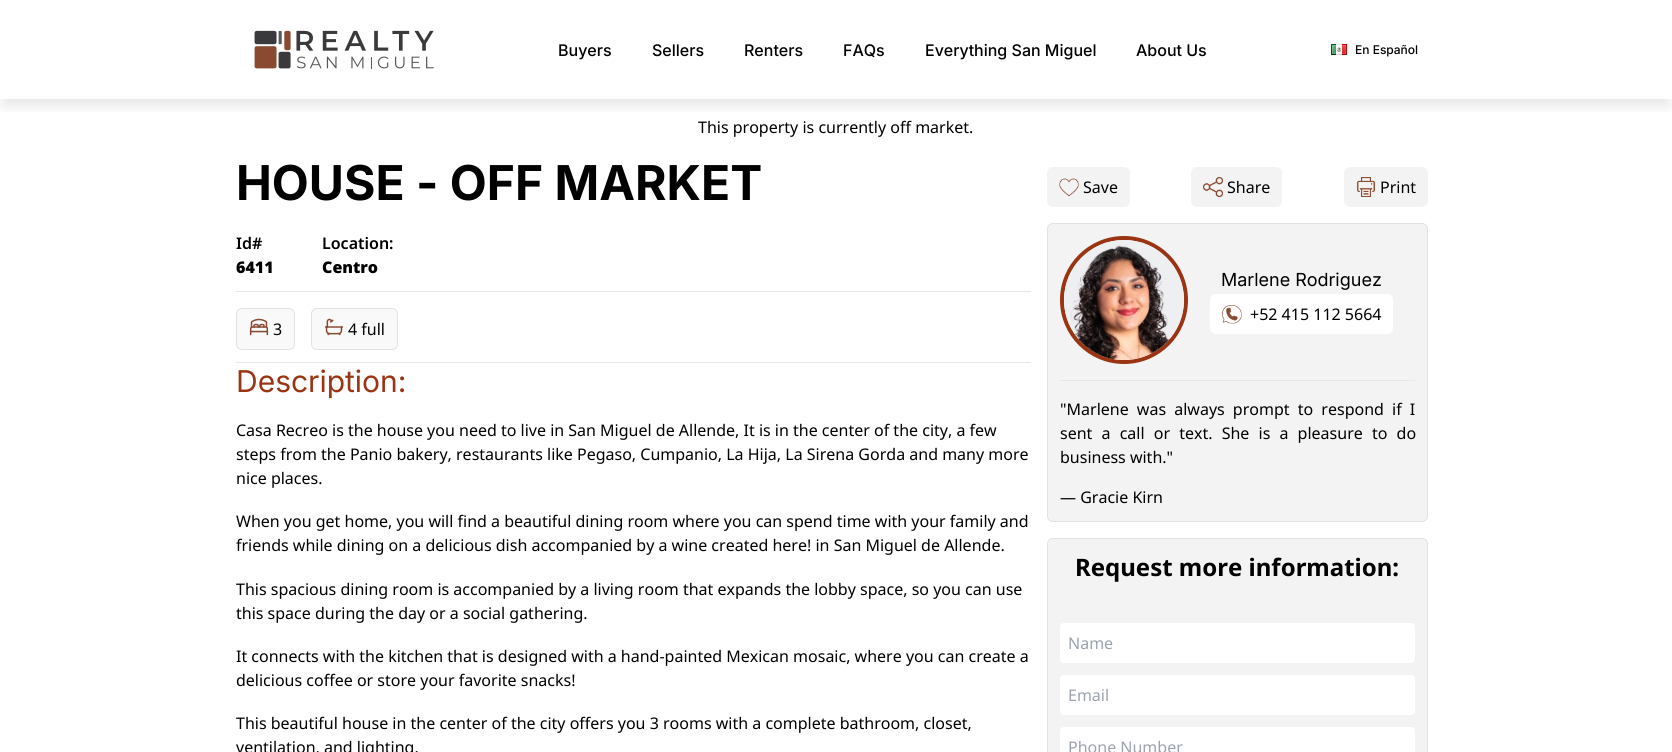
#include <cairo.h>
#include <math.h>
#include <stddef.h>


static void set_color(cairo_t *cr, unsigned color) {
    cairo_set_source_rgb(cr, (color >> 16) / 255.0, (color >> 8 & 255) / 255.0, (color & 255) / 255.0);
}

static void draw_text(cairo_t *cr, double x, double y, const char *s, const char *family, double size, int italic, int bold, unsigned color) {
    cairo_select_font_face(cr, family, italic ? CAIRO_FONT_SLANT_ITALIC : CAIRO_FONT_SLANT_NORMAL,
        bold ? CAIRO_FONT_WEIGHT_BOLD : CAIRO_FONT_WEIGHT_NORMAL);
    cairo_set_font_size(cr, size);
    set_color(cr, color);
    cairo_move_to(cr, x, y);
    cairo_show_text(cr, s);
}

static void draw_spaced(cairo_t *cr, double x, double y, const char *s, double letter, double word) {
    cairo_move_to(cr, x, y);
    while (*s) {
        char ch[5] = {0};
        int n = 0;
        do ch[n++] = *s++; while ((*s & 0xC0) == 0x80);
        cairo_show_text(cr, ch);
        cairo_rel_move_to(cr, letter + word * (*ch == ' '), 0);
    }
}

static void fill_rect(cairo_t *cr, double x, double y, double w, double h, unsigned color) {
    set_color(cr, color);
    cairo_rectangle(cr, x, y, w, h);
    cairo_fill(cr);
}

static void rounded_rect(cairo_t *cr, double x, double y, double w, double h, double r) {
    cairo_new_sub_path(cr);
    cairo_arc(cr, x + w - r, y + h - r, r, 0, M_PI / 2);
    cairo_arc(cr, x + r, y + h - r, r, M_PI / 2, M_PI);
    cairo_arc(cr, x + r, y + r, r, M_PI, 1.5 * M_PI);
    cairo_arc(cr, x + w - r, y + r, r, 1.5 * M_PI, 2 * M_PI);
    cairo_close_path(cr);
}

static void draw_shadow(cairo_t *cr, double x, double y, double w, double h, double r, double blur, double alpha) {
    cairo_push_group_with_content(cr, CAIRO_CONTENT_ALPHA);
    cairo_set_operator(cr, CAIRO_OPERATOR_SOURCE);
    for (int i = 15; i >= -15 && fmin(w, h) + blur * i / 3 > 0; i -= 2) {
        double e = blur * i / 6;
        cairo_set_source_rgba(cr, 0, 0, 0, alpha * erfc((i - 1) / 8.5) / 2);
        rounded_rect(cr, x - e, y - e, w + 2 * e, h + 2 * e, fmax(0, fmin(r + e + blur * .6, fmin(w, h) / 2 + e)));
        cairo_fill(cr);
    }
    cairo_pattern_t *soft = cairo_pop_group(cr);
    cairo_mask(cr, soft);
    cairo_pattern_destroy(soft);
}

static void draw_image(cairo_t *cr, const char *path, double x, double y, double w, double h) {
    cairo_surface_t *image = cairo_image_surface_create_from_png(path);
    cairo_save(cr);
    cairo_set_source_surface(cr, image, x, y);
    cairo_rectangle(cr, x, y, w, h);
    cairo_fill(cr);
    cairo_restore(cr);
    cairo_surface_destroy(image);
}

int main(void) {
    cairo_surface_t *surface = cairo_image_surface_create(CAIRO_FORMAT_RGB24, 1672, 752);
    cairo_t *cr = cairo_create(surface);
    cairo_font_options_t *options = cairo_font_options_create();
    cairo_font_options_set_hint_metrics(options, CAIRO_HINT_METRICS_OFF);
    cairo_font_options_set_hint_style(options, CAIRO_HINT_STYLE_NONE);
    cairo_set_font_options(cr, options);
    cairo_set_miter_limit(cr, 4);
    set_color(cr, 0xFFFFFF);
    cairo_paint(cr);
    cairo_save(cr);
    cairo_rectangle(cr, 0, 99, 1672, 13);
    cairo_clip(cr);
    set_color(cr, 0x000000);
    draw_shadow(cr, 3, 13, 1666, 93, 0, 7.5, 0.1);
    cairo_restore(cr);
    draw_image(cr, "assets/img1.png", 254, 30, 180, 39);
    draw_text(cr, 558, 56, "Buyers", "Inter Medium", 16, 0, 0, 0x000000);
    draw_text(cr, 652, 56, "Sellers", "Inter Medium", 16, 0, 0, 0x000000);
    draw_text(cr, 744, 56, "Renters", "Inter Medium", 16, 0, 0, 0x000000);
    draw_text(cr, 843, 56, "FAQs", "Inter Medium", 16, 0, 0, 0x000000);
    draw_text(cr, 925, 56, "Everything San Miguel", "Inter Medium", 16, 0, 0, 0x000000);
    draw_text(cr, 1136, 56, "About Us", "Inter Medium", 16, 0, 0, 0x000000);
    draw_image(cr, "assets/img2.png", 1331, 44, 16, 11);
    draw_text(cr, 1355, 54, "En Español", "Inter Medium", 12, 0, 0, 0x000000);
    draw_text(cr, 698, 133, "This property is currently off market.", "Noto Sans", 16, 0, 0, 0x000000);
    draw_text(cr, 236, 200, "HOUSE - OFF MARKET", "Inter", 48, 0, 1, 0x000000);
    draw_text(cr, 236, 249, "Id#", "Noto Sans SemiBold", 16, 0, 0, 0x000000);
    draw_text(cr, 236, 273, "6411", "Noto Sans Black", 16, 0, 0, 0x000000);
    draw_text(cr, 322, 249, "Location:", "Noto Sans SemiBold", 16, 0, 0, 0x000000);
    draw_text(cr, 322, 273, "Centro", "Noto Sans Black", 16, 0, 0, 0x000000);
    fill_rect(cr, 236, 291, 795, 1, 0xE5E7EB);
    set_color(cr, 0xF9F9F9);
    rounded_rect(cr, 236.5, 308.5, 58, 41, 5.5);
    cairo_fill_preserve(cr);
    set_color(cr, 0xE2E2E2);
    cairo_set_line_width(cr, 1);
    cairo_stroke(cr);
    draw_image(cr, "assets/img3.png", 249, 318, 20, 18);
    draw_text(cr, 273, 335, "3", "Noto Sans", 16, 0, 0, 0x000000);
    set_color(cr, 0xF9F9F9);
    rounded_rect(cr, 311.5, 308.5, 86, 41, 5.5);
    cairo_fill_preserve(cr);
    set_color(cr, 0xE2E2E2);
    cairo_stroke(cr);
    draw_image(cr, "assets/img4.png", 325, 318, 18, 18);
    draw_text(cr, 348, 335, "4 full", "Noto Sans", 16, 0, 0, 0x000000);
    fill_rect(cr, 236, 362, 795, 1, 0xE5E7EB);
    draw_text(cr, 236, 392, "Description:", "Inter", 30, 0, 0, 0x9A3412);
    draw_text(cr, 236, 436, "Casa Recreo is the house you need to live in San Miguel de Allende, It is in the center of the city, a few", "Noto Sans", 16, 0, 0, 0x000000);
    draw_text(cr, 236, 460, "steps from the Panio bakery, restaurants like Pegaso, Cumpanio, La Hija, La Sirena Gorda and many more", "Noto Sans", 16, 0, 0, 0x000000);
    draw_text(cr, 236, 484, "nice places.", "Noto Sans", 16, 0, 0, 0x000000);
    draw_text(cr, 236, 527, "When you get home, you will find a beautiful dining room where you can spend time with your family and", "Noto Sans", 16, 0, 0, 0x000000);
    draw_text(cr, 236, 551, "friends while dining on a delicious dish accompanied by a wine created here! in San Miguel de Allende.", "Noto Sans", 16, 0, 0, 0x000000);
    draw_text(cr, 236, 595, "This spacious dining room is accompanied by a living room that expands the lobby space, so you can use", "Noto Sans", 16, 0, 0, 0x000000);
    draw_text(cr, 236, 619, "this space during the day or a social gathering.", "Noto Sans", 16, 0, 0, 0x000000);
    draw_text(cr, 236, 662, "It connects with the kitchen that is designed with a hand-painted Mexican mosaic, where you can create a", "Noto Sans", 16, 0, 0, 0x000000);
    draw_text(cr, 236, 686, "delicious coffee or store your favorite snacks!", "Noto Sans", 16, 0, 0, 0x000000);
    draw_text(cr, 236, 729, "This beautiful house in the center of the city offers you 3 rooms with a complete bathroom, closet,", "Noto Sans", 16, 0, 0, 0x000000);
    draw_text(cr, 236, 753, "ventilation, and lighting.", "Noto Sans", 16, 0, 0, 0x000000);
    set_color(cr, 0xF3F3F3);
    rounded_rect(cr, 1047, 167, 83, 40, 6);
    cairo_fill(cr);
    draw_image(cr, "assets/img5.png", 1059, 178, 20, 19);
    draw_text(cr, 1083, 193, "Save", "Noto Sans", 16, 0, 0, 0x000000);
    set_color(cr, 0xF3F3F3);
    rounded_rect(cr, 1191, 167, 91, 40, 6);
    cairo_fill(cr);
    draw_image(cr, "assets/img6.png", 1203, 177, 20, 20);
    draw_text(cr, 1227, 193, "Share", "Noto Sans", 16, 0, 0, 0x000000);
    set_color(cr, 0xF3F3F3);
    rounded_rect(cr, 1344, 167, 84, 40, 6);
    cairo_fill(cr);
    draw_image(cr, "assets/img7.png", 1356, 177, 20, 20);
    draw_text(cr, 1380, 193, "Print", "Noto Sans", 16, 0, 0, 0x000000);
    set_color(cr, 0xF3F3F3);
    rounded_rect(cr, 1047.5, 223.5, 380, 298, 5.5);
    cairo_fill_preserve(cr);
    set_color(cr, 0xE2E2E2);
    cairo_stroke(cr);
    cairo_arc(cr, 1124, 300, 62, 0, 2 * M_PI);
    set_color(cr, 0x9A3412);
    cairo_set_line_width(cr, 4);
    cairo_stroke(cr);
    draw_image(cr, "assets/img8.png", 1064, 240, 120, 120);
    draw_text(cr, 1221, 286, "Marlene Rodriguez", "Inter", 18, 0, 0, 0x000000);
    set_color(cr, 0xFFFFFF);
    rounded_rect(cr, 1210, 294, 183, 40, 6);
    cairo_fill(cr);
    draw_image(cr, "assets/img9.png", 1222, 305, 20, 19);
    draw_text(cr, 1250, 320, "+52 415 112 5664", "Noto Sans", 16, 0, 0, 0x000000);
    fill_rect(cr, 1060, 380, 355, 1, 0xE5E7EB);
    set_color(cr, 0x000000);
    draw_spaced(cr, 1060, 415, "\"Marlene was always prompt to respond if I", 0, 4);
    draw_spaced(cr, 1060, 439, "sent a call or text. She is a pleasure to do", 0, 5);
    draw_text(cr, 1060, 463, "business with.\"", "Noto Sans", 16, 0, 0, 0x000000);
    draw_text(cr, 1060, 503, "— Gracie Kirn", "Noto Sans", 16, 0, 0, 0x000000);
    set_color(cr, 0xF3F3F3);
    rounded_rect(cr, 1047.5, 538.5, 380, 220, 5.5);
    cairo_fill_preserve(cr);
    set_color(cr, 0xE2E2E2);
    cairo_set_line_width(cr, 1);
    cairo_stroke(cr);
    draw_text(cr, 1075, 576, "Request more information:", "Noto Sans", 24, 0, 1, 0x000000);
    set_color(cr, 0xFFFFFF);
    rounded_rect(cr, 1060, 623, 355, 40, 4);
    cairo_fill(cr);
    draw_text(cr, 1068, 649, "Name", "Noto Sans", 16, 0, 0, 0x9CA3AF);
    set_color(cr, 0xFFFFFF);
    rounded_rect(cr, 1060, 675, 355, 40, 4);
    cairo_fill(cr);
    draw_text(cr, 1068, 701, "Email", "Noto Sans", 16, 0, 0, 0x9CA3AF);
    set_color(cr, 0xFFFFFF);
    rounded_rect(cr, 1060, 727, 355, 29, 4);
    cairo_fill(cr);
    draw_text(cr, 1068, 753, "Phone Number", "Noto Sans", 16, 0, 0, 0x9CA3AF);
    cairo_surface_write_to_png(surface, "output.png");
    cairo_font_options_destroy(options);
    cairo_destroy(cr);
    cairo_surface_destroy(surface);
    return 0;
}
